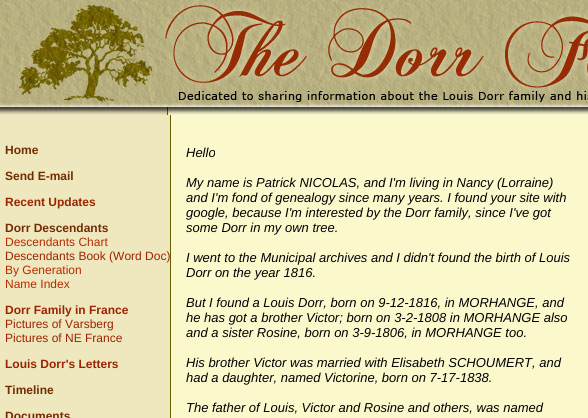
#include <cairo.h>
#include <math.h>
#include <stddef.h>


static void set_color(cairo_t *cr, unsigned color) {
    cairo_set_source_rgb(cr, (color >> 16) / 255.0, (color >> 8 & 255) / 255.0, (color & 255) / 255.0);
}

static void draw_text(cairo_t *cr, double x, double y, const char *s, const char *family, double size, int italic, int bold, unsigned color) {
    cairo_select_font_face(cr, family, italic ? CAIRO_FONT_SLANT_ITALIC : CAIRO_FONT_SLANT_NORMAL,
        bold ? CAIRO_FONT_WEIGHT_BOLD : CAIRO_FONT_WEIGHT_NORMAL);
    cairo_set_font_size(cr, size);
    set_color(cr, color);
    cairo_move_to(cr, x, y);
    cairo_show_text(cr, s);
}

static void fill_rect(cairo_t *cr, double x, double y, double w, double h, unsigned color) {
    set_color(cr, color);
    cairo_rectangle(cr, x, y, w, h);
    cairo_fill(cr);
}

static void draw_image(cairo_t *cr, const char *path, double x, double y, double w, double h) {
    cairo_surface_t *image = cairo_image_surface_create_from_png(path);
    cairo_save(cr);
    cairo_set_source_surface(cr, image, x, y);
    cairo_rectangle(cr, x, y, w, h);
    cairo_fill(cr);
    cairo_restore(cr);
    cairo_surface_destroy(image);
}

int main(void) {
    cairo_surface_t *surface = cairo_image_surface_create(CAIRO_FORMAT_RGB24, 588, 418);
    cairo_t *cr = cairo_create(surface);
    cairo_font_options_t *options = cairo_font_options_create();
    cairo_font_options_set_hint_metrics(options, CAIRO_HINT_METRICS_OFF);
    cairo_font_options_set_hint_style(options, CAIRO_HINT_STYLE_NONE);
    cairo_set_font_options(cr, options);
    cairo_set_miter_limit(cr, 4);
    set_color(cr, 0xFBF8CC);
    cairo_paint(cr);
    draw_image(cr, "assets/img1.png", 0, 0, 588, 115);
    fill_rect(cr, 0, 115, 170, 303, 0xEFE7BD);
    fill_rect(cr, 170, 115, 1, 303, 0x695B00);
    draw_text(cr, 5, 154, "Home", "Liberation Sans", 12, 0, 1, 0x722C03);
    draw_text(cr, 5, 180, "Send E-mail", "Liberation Sans", 12, 0, 1, 0x722C03);
    draw_text(cr, 5, 206, "Recent Updates", "Liberation Sans", 12, 0, 1, 0x9B2402);
    draw_text(cr, 5, 232, "Dorr Descendants", "Liberation Sans", 12, 0, 1, 0x722C03);
    draw_text(cr, 5, 246, "Descendants Chart", "Liberation Sans", 12, 0, 0, 0xB52C03);
    draw_text(cr, 5, 260, "Descendants Book (Word Doc)", "Liberation Sans", 12, 0, 0, 0x9B2402);
    draw_text(cr, 5, 274, "By Generation", "Liberation Sans", 12, 0, 0, 0xB52C03);
    draw_text(cr, 5, 288, "Name Index", "Liberation Sans", 12, 0, 0, 0xB52C03);
    draw_text(cr, 5, 314, "Dorr Family in France", "Liberation Sans", 12, 0, 1, 0x9B2402);
    draw_text(cr, 5, 328, "Pictures of Varsberg", "Liberation Sans", 12, 0, 0, 0x9B2402);
    draw_text(cr, 5, 342, "Pictures of NE France", "Liberation Sans", 12, 0, 0, 0x9B2402);
    draw_text(cr, 5, 368, "Louis Dorr's Letters", "Liberation Sans", 12, 0, 1, 0x9B2402);
    draw_text(cr, 5, 394, "Timeline", "Liberation Sans", 12, 0, 1, 0x722C03);
    draw_text(cr, 5, 420, "Documents", "Liberation Sans", 12, 0, 1, 0x722C03);
    draw_text(cr, 186, 157, "Hello", "Liberation Sans", 13, 1, 0, 0x000000);
    draw_text(cr, 186, 187, "My name is Patrick NICOLAS, and I'm living in Nancy (Lorraine)", "Liberation Sans", 13, 1, 0, 0x000000);
    draw_text(cr, 186, 202, "and I'm fond of genealogy since many years. I found your site with", "Liberation Sans", 13, 1, 0, 0x000000);
    draw_text(cr, 186, 217, "google, because I'm interested by the Dorr family, since I've got", "Liberation Sans", 13, 1, 0, 0x000000);
    draw_text(cr, 186, 232, "some Dorr in my own tree.", "Liberation Sans", 13, 1, 0, 0x000000);
    draw_text(cr, 186, 262, "I went to the Municipal archives and I didn't found the birth of Louis", "Liberation Sans", 13, 1, 0, 0x000000);
    draw_text(cr, 186, 277, "Dorr on the year 1816.", "Liberation Sans", 13, 1, 0, 0x000000);
    draw_text(cr, 186, 307, "But I found a Louis Dorr, born on 9-12-1816, in MORHANGE, and", "Liberation Sans", 13, 1, 0, 0x000000);
    draw_text(cr, 186, 322, "he has got a brother Victor; born on 3-2-1808 in MORHANGE also", "Liberation Sans", 13, 1, 0, 0x000000);
    draw_text(cr, 186, 337, "and a sister Rosine, born on 3-9-1806, in MORHANGE too.", "Liberation Sans", 13, 1, 0, 0x000000);
    draw_text(cr, 186, 367, "His brother Victor was married with Elisabeth SCHOUMERT, and", "Liberation Sans", 13, 1, 0, 0x000000);
    draw_text(cr, 186, 382, "had a daughter, named Victorine, born on 7-17-1838.", "Liberation Sans", 13, 1, 0, 0x000000);
    draw_text(cr, 186, 412, "The father of Louis, Victor and Rosine and others, was named", "Liberation Sans", 13, 1, 0, 0x000000);
    cairo_surface_write_to_png(surface, "output.png");
    cairo_font_options_destroy(options);
    cairo_destroy(cr);
    cairo_surface_destroy(surface);
    return 0;
}
